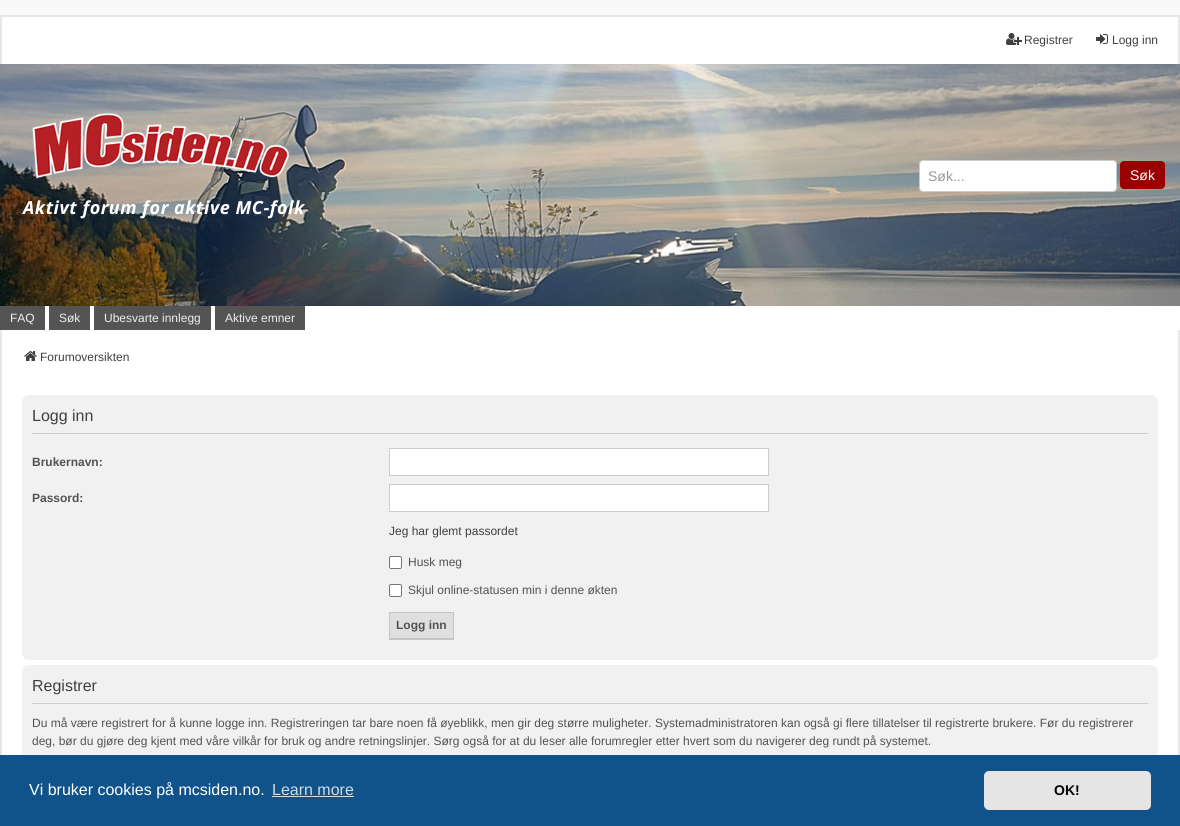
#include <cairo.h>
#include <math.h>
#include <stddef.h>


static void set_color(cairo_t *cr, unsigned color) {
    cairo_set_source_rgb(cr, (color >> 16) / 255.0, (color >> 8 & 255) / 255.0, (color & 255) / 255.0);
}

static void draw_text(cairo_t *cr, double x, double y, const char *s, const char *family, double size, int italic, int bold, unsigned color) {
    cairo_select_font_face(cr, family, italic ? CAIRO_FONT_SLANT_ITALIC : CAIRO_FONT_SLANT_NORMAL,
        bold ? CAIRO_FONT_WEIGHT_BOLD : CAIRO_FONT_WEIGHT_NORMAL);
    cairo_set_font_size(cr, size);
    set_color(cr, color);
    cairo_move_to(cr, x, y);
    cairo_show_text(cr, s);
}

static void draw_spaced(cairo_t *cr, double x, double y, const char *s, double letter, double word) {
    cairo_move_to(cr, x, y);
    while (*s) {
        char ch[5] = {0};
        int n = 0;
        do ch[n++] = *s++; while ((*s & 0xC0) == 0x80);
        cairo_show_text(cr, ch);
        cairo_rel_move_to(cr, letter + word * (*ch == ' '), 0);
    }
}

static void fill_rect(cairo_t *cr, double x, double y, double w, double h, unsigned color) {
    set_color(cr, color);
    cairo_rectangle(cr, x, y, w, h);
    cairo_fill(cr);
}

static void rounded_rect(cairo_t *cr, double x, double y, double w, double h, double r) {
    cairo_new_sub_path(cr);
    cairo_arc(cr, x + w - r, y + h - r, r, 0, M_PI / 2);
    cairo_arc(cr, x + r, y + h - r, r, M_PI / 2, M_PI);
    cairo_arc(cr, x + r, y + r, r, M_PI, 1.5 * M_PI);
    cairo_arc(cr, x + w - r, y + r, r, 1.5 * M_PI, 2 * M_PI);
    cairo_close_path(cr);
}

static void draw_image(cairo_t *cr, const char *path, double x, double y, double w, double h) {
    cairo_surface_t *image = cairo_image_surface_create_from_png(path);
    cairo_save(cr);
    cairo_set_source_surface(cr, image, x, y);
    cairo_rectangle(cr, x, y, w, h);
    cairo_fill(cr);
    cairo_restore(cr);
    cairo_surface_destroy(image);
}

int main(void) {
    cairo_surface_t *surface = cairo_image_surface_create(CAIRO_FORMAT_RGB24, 1180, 826);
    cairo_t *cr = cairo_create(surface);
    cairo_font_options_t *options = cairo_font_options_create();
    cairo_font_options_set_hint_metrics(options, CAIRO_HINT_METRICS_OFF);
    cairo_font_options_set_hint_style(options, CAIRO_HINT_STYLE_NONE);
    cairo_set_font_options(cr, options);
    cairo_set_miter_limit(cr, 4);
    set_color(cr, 0xF9F9F9);
    cairo_paint(cr);
    fill_rect(cr, 2, 17, 1176, 47, 0xFFFFFF);
    fill_rect(cr, 0, 15, 1180, 2, 0xE7E7E7);
    fill_rect(cr, 1178, 15, 2, 49, 0xE7E7E7);
    fill_rect(cr, 0, 15, 2, 49, 0xE7E7E7);
    draw_image(cr, "assets/img1.png", 1006, 33, 16, 12);
    draw_text(cr, 1024, 44, "Registrer", "Liberation Sans", 12, 0, 0, 0x3F3F3F);
    draw_image(cr, "assets/img2.png", 1096, 34, 12, 10);
    draw_text(cr, 1112, 44, "Logg inn", "Liberation Sans", 12, 0, 0, 0x3F3F3F);
    fill_rect(cr, 45, 306, 1135, 24, 0xFFFFFF);
    draw_image(cr, "assets/img3.png", 0, 64, 1180, 242);
    rounded_rect(cr, 919.5, 160.5, 197, 31, 3.5);
    cairo_fill_preserve(cr);
    set_color(cr, 0xCCCCCC);
    cairo_set_line_width(cr, 1);
    cairo_stroke(cr);
    draw_text(cr, 928, 181, "Søk...", "Liberation Sans", 14, 0, 0, 0x999999);
    set_color(cr, 0x990000);
    rounded_rect(cr, 1120, 161, 45, 28, 4);
    cairo_fill(cr);
    draw_text(cr, 1130, 180, "Søk", "Liberation Sans", 14, 0, 0, 0xFFFFFF);
    draw_image(cr, "assets/img4.png", 32, 113, 257, 66);
    cairo_select_font_face(cr, "Open Sans", CAIRO_FONT_SLANT_ITALIC, CAIRO_FONT_WEIGHT_BOLD);
    cairo_set_font_size(cr, 18);
    draw_spaced(cr, 23, 214, "Aktivt forum for aktive MC-folk", 0.55, 0);
    fill_rect(cr, 0, 306, 45, 24, 0x545454);
    draw_text(cr, 10, 322, "FAQ", "Liberation Sans", 12, 0, 0, 0xEEEEEE);
    fill_rect(cr, 49, 306, 41, 24, 0x545454);
    draw_text(cr, 59, 322, "Søk", "Liberation Sans", 12, 0, 0, 0xEEEEEE);
    fill_rect(cr, 94, 306, 117, 24, 0x545454);
    draw_text(cr, 104, 322, "Ubesvarte innlegg", "Liberation Sans", 12, 0, 0, 0xEEEEEE);
    fill_rect(cr, 215, 306, 90, 24, 0x545454);
    draw_text(cr, 225, 322, "Aktive emner", "Liberation Sans", 12, 0, 0, 0xEEEEEE);
    fill_rect(cr, 2, 330, 1176, 425, 0xFFFFFF);
    fill_rect(cr, 1178, 330, 2, 425, 0xE7E7E7);
    fill_rect(cr, 0, 330, 2, 425, 0xE7E7E7);
    draw_image(cr, "assets/img5.png", 24, 351, 13, 10);
    draw_text(cr, 40, 361, "Forumoversikten", "Liberation Sans", 12, 0, 0, 0x3F3F3F);
    set_color(cr, 0xF1F1F1);
    rounded_rect(cr, 22, 395, 1136, 265, 7);
    cairo_fill(cr);
    fill_rect(cr, 32, 433, 1116, 1, 0xCCCCCC);
    draw_text(cr, 32, 421, "Logg inn", "Liberation Sans", 16, 0, 0, 0x3F3F3F);
    draw_text(cr, 32, 466, "Brukernavn:", "Liberation Sans", 12, 0, 1, 0x525252);
    set_color(cr, 0xFFFFFF);
    cairo_rectangle(cr, 389.5, 448.5, 379, 27);
    cairo_fill_preserve(cr);
    set_color(cr, 0xCCCCCC);
    cairo_stroke(cr);
    draw_text(cr, 32, 502, "Passord:", "Liberation Sans", 12, 0, 1, 0x525252);
    set_color(cr, 0xFFFFFF);
    cairo_rectangle(cr, 389.5, 484.5, 379, 27);
    cairo_fill_preserve(cr);
    set_color(cr, 0xCCCCCC);
    cairo_stroke(cr);
    draw_text(cr, 389, 535, "Jeg har glemt passordet", "Liberation Sans", 12, 0, 0, 0x3F3F3F);
    set_color(cr, 0xFFFFFF);
    rounded_rect(cr, 389.5, 556.5, 12, 12, 1.5);
    cairo_fill_preserve(cr);
    set_color(cr, 0x767676);
    cairo_stroke(cr);
    draw_text(cr, 408, 566, "Husk meg", "Liberation Sans", 12, 0, 0, 0x525252);
    set_color(cr, 0xFFFFFF);
    rounded_rect(cr, 389.5, 584.5, 12, 12, 1.5);
    cairo_fill_preserve(cr);
    set_color(cr, 0x767676);
    cairo_stroke(cr);
    draw_text(cr, 408, 594, "Skjul online-statusen min i denne økten", "Liberation Sans", 12, 0, 0, 0x525252);
    fill_rect(cr, 390, 613, 63, 25, 0xDFDFDF);
    fill_rect(cr, 389, 612, 65, 1, 0xC5C5C5);
    fill_rect(cr, 453, 612, 1, 28, 0xC5C5C5);
    fill_rect(cr, 389, 638, 65, 2, 0xC5C5C5);
    fill_rect(cr, 389, 612, 1, 28, 0xC5C5C5);
    draw_text(cr, 396, 629, "Logg inn", "Liberation Sans", 12, 0, 1, 0x525252);
    set_color(cr, 0xF1F1F1);
    rounded_rect(cr, 22, 665, 1136, 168, 7);
    cairo_fill(cr);
    fill_rect(cr, 32, 703, 1116, 1, 0xCCCCCC);
    draw_text(cr, 32, 691, "Registrer", "Liberation Sans", 16, 0, 0, 0x3F3F3F);
    draw_text(cr, 32, 727, "Du må være registrert for å kunne logge inn. Registreringen tar bare noen få øyeblikk, men gir deg større muligheter. Systemadministratoren kan også gi flere tillatelser til registrerte brukere. Før du registrerer", "Liberation Sans", 12, 0, 0, 0x525252);
    draw_text(cr, 32, 745, "deg, bør du gjøre deg kjent med våre vilkår for bruk og andre retningslinjer. Sørg også for at du leser alle forumregler etter hvert som du navigerer deg rundt på systemet.", "Liberation Sans", 12, 0, 0, 0x525252);
    fill_rect(cr, 0, 755, 1180, 71, 0x0F538A);
    draw_text(cr, 29, 795, "Vi bruker cookies på mcsiden.no.", "Liberation Sans", 16, 0, 0, 0xFFFFFF);
    draw_text(cr, 272, 795, "Learn more", "Liberation Sans", 16, 0, 0, 0xCFDDE8);
    fill_rect(cr, 272, 796, 82, 1, 0xCFDDE8);
    set_color(cr, 0xE5E5E5);
    rounded_rect(cr, 984, 771, 167, 39, 5);
    cairo_fill(cr);
    draw_text(cr, 1054, 795, "OK!", "Liberation Sans", 14, 0, 1, 0x000000);
    cairo_surface_write_to_png(surface, "output.png");
    cairo_font_options_destroy(options);
    cairo_destroy(cr);
    cairo_surface_destroy(surface);
    return 0;
}
